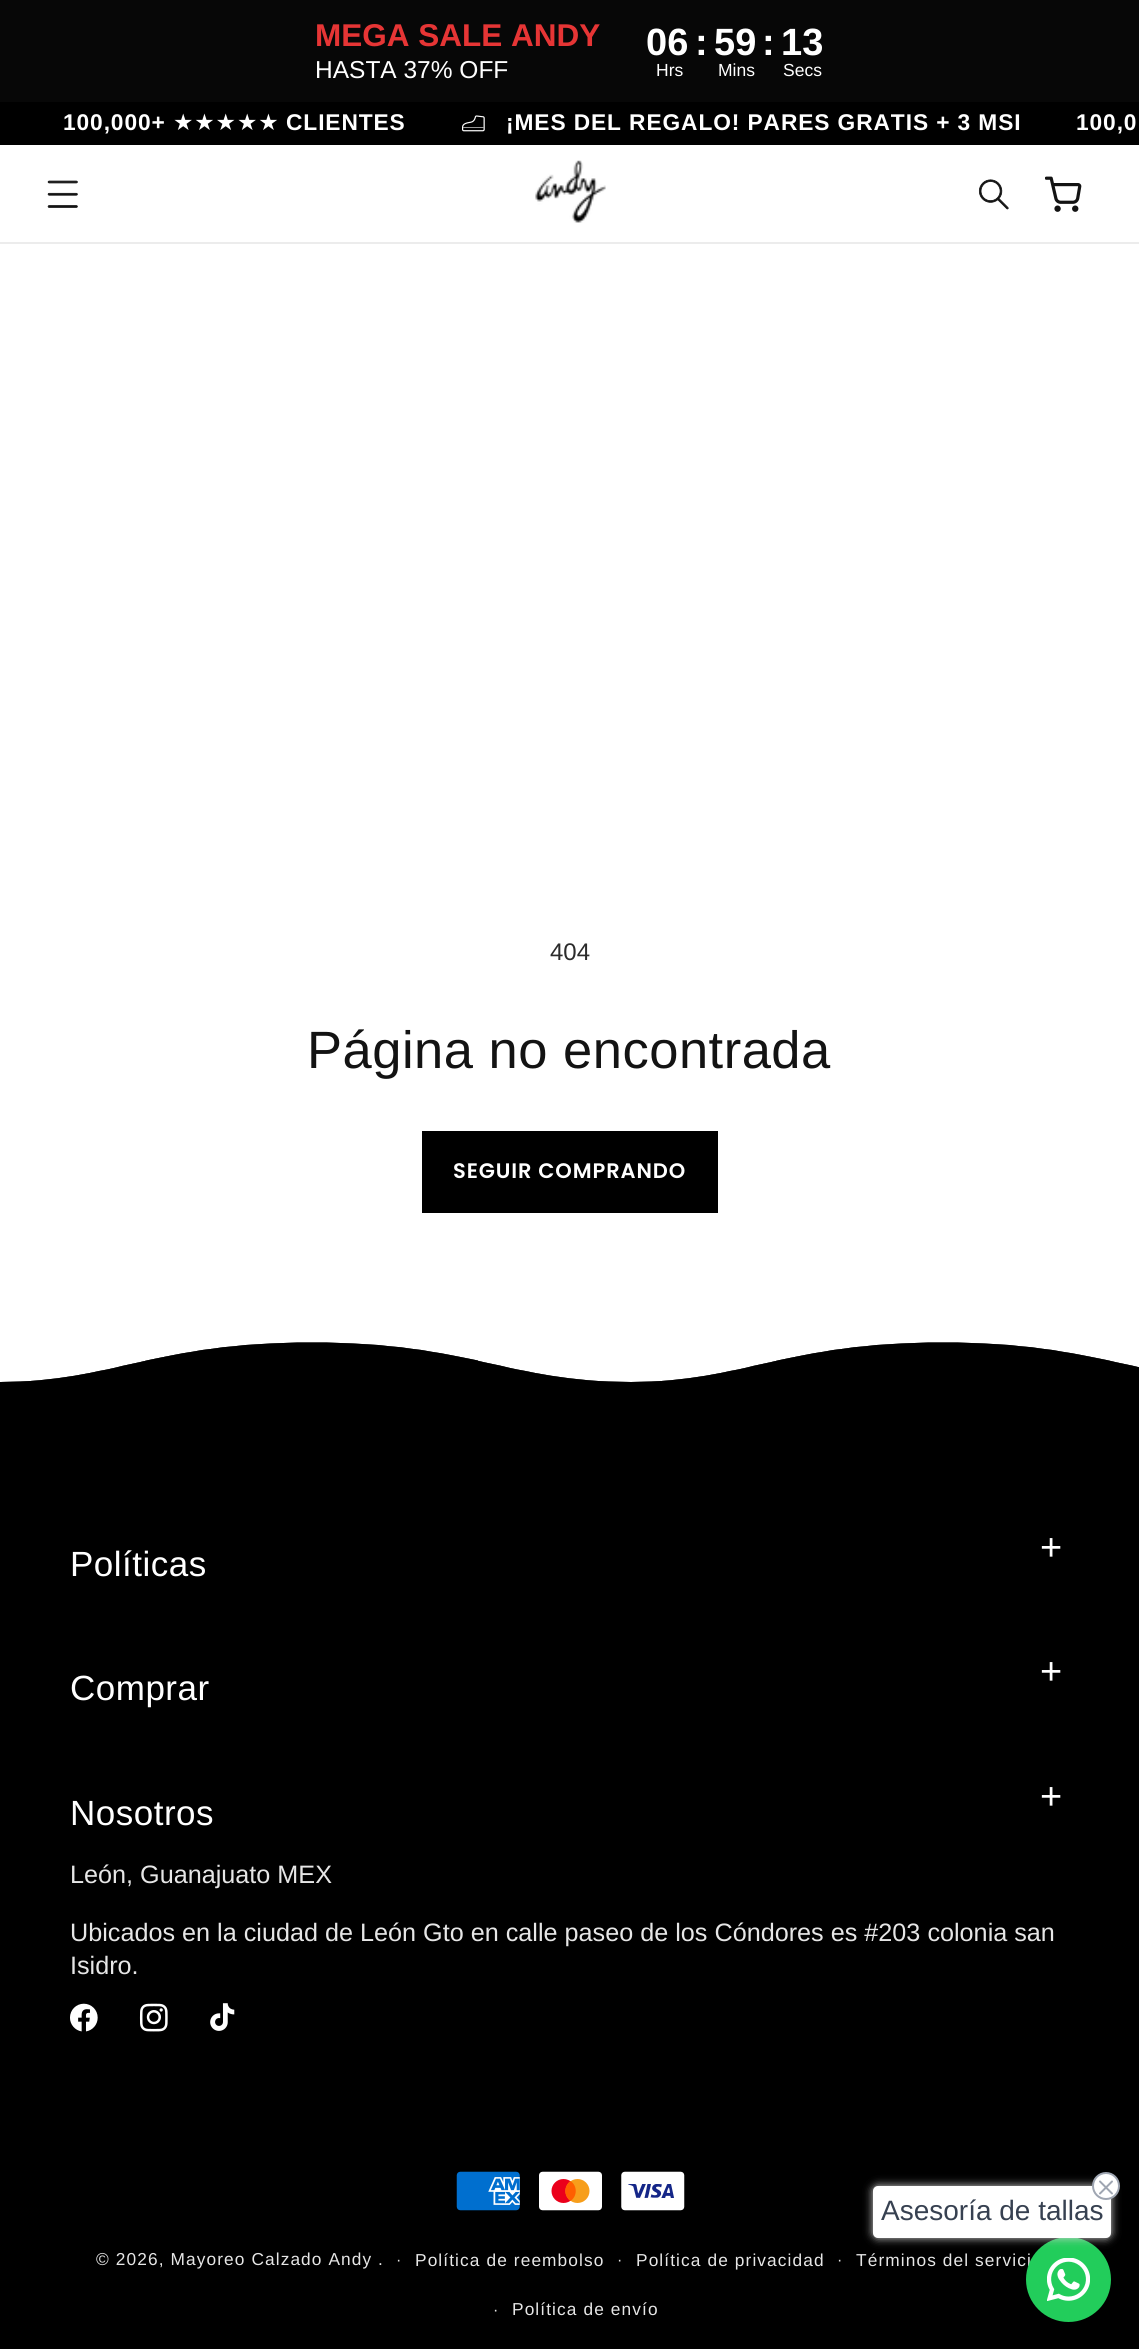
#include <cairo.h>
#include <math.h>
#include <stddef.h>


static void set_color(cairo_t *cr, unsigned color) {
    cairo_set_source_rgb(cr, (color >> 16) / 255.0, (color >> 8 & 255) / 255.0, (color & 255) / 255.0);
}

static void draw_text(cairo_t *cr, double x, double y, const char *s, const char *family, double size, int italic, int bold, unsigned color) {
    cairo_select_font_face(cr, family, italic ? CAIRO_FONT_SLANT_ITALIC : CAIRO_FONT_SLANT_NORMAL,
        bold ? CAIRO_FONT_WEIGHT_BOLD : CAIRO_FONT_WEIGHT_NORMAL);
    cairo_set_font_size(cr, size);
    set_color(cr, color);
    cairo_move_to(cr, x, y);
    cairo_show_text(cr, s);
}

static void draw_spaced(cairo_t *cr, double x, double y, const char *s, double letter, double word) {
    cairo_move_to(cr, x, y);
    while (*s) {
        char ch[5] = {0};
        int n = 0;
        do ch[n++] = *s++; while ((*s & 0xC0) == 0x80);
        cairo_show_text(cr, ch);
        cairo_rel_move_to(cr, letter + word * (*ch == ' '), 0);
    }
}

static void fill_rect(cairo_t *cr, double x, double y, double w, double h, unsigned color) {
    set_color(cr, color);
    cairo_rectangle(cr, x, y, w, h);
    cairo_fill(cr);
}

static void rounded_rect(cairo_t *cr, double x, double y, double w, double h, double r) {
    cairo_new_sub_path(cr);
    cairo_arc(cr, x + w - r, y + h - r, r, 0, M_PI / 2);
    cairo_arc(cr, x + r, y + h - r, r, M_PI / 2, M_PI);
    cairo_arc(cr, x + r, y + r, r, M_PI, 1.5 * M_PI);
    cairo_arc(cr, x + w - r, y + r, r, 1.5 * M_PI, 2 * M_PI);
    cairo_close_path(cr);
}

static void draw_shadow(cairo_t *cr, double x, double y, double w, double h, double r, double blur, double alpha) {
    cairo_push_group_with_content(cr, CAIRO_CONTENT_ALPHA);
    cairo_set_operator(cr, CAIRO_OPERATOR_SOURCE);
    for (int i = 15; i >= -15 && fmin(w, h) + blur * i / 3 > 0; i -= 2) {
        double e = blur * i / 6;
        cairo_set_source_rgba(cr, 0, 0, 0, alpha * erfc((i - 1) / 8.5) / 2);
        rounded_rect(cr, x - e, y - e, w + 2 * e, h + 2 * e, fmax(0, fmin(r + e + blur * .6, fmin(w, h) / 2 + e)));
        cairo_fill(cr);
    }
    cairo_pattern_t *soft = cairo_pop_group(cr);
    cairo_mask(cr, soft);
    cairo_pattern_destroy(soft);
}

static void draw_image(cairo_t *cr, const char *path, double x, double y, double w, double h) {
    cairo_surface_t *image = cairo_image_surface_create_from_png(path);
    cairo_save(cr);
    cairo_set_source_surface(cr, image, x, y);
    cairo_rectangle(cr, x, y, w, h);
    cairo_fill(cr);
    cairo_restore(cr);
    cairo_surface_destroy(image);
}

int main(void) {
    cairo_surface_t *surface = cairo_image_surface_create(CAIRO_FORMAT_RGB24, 1139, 2349);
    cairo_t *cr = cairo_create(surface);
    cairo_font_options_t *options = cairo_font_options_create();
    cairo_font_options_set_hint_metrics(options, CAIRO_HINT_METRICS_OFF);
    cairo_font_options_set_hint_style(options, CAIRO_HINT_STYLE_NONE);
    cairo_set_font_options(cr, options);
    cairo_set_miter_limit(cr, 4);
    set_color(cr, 0xFFFFFF);
    cairo_paint(cr);
    fill_rect(cr, 0, 0, 1139, 102, 0x070707);
    draw_text(cr, 315, 46, "MEGA SALE ANDY", "Liberation Sans", 31.5, 0, 1, 0xE63535);
    draw_text(cr, 315, 78, "HASTA 37% OFF", "Liberation Sans", 24.5, 0, 0, 0xFFFFFF);
    draw_text(cr, 646, 55, "06", "Liberation Sans", 38, 0, 1, 0xFFFFFF);
    draw_text(cr, 695, 55, ":", "Liberation Sans", 38, 0, 1, 0xFFFFFF);
    draw_text(cr, 714, 55, "59", "Liberation Sans", 38, 0, 1, 0xFFFFFF);
    draw_text(cr, 762, 55, ":", "Liberation Sans", 38, 0, 1, 0xFFFFFF);
    draw_text(cr, 781, 55, "13", "Liberation Sans", 38, 0, 1, 0xFFFFFF);
    draw_text(cr, 656, 76, "Hrs", "Liberation Sans", 17.5, 0, 0, 0xFFFFFF);
    draw_text(cr, 718, 76, "Mins", "Liberation Sans", 17.5, 0, 0, 0xFFFFFF);
    draw_text(cr, 783, 76, "Secs", "Liberation Sans", 17.5, 0, 0, 0xFFFFFF);
    fill_rect(cr, 0, 102, 1139, 43, 0x000000);
    cairo_select_font_face(cr, "Liberation Sans", CAIRO_FONT_SLANT_NORMAL, CAIRO_FONT_WEIGHT_BOLD);
    cairo_set_font_size(cr, 22.75);
    set_color(cr, 0xFFFFFF);
    draw_spaced(cr, 63, 130, "100,000+", 0.9, 0);
    cairo_select_font_face(cr, "DejaVu Sans", CAIRO_FONT_SLANT_NORMAL, CAIRO_FONT_WEIGHT_NORMAL);
    draw_spaced(cr, 173, 130, "★★★★★", 0.9, 0);
    cairo_select_font_face(cr, "Liberation Sans", CAIRO_FONT_SLANT_NORMAL, CAIRO_FONT_WEIGHT_BOLD);
    draw_spaced(cr, 286, 130, "CLIENTES", 0.9, 0);
    draw_image(cr, "assets/img1.png", 462, 115, 23, 17);
    draw_spaced(cr, 506, 130, "¡MES DEL REGALO! PARES GRATIS + 3 MSI", 0.9, 0);
    draw_spaced(cr, 1076, 130, "100,0", 0.9, 0);
    fill_rect(cr, 0, 242, 1139, 2, 0xECECEC);
    draw_image(cr, "assets/img2.png", 47, 180, 31, 28);
    draw_image(cr, "assets/img3.png", 535, 160, 71, 63);
    draw_image(cr, "assets/img4.png", 978, 179, 31, 31);
    draw_image(cr, "assets/img5.png", 1045, 176, 37, 36);
    draw_text(cr, 550, 960, "404", "Liberation Sans", 24, 0, 0, 0x2B2B2B);
    cairo_set_font_size(cr, 52.5);
    set_color(cr, 0x131313);
    draw_spaced(cr, 307, 1068, "Página no encontrada", 0.5, 0);
    fill_rect(cr, 422, 1131, 296, 82, 0x000000);
    cairo_select_font_face(cr, "Poppins SemiBold", CAIRO_FONT_SLANT_NORMAL, CAIRO_FONT_WEIGHT_NORMAL);
    cairo_set_font_size(cr, 21);
    set_color(cr, 0xFFFFFF);
    draw_spaced(cr, 453, 1178, "SEGUIR COMPRANDO", 0.9, 0);
    draw_image(cr, "assets/img6.png", 0, 1342, 1139, 65);
    draw_image(cr, "assets/img7.png", 2, 1342, 1137, 40);
    draw_image(cr, "assets/img8.png", 2, 1342, 1137, 40);
    fill_rect(cr, 0, 1407, 1139, 942, 0x000000);
    cairo_select_font_face(cr, "Liberation Sans", CAIRO_FONT_SLANT_NORMAL, CAIRO_FONT_WEIGHT_NORMAL);
    cairo_set_font_size(cr, 38);
    set_color(cr, 0xFFFFFF);
    draw_spaced(cr, 1040, 1560, "+", 0.5, 0);
    cairo_set_font_size(cr, 35);
    draw_spaced(cr, 70, 1576, "Políticas", 0.5, 0);
    cairo_set_font_size(cr, 38);
    draw_spaced(cr, 1040, 1684, "+", 0.5, 0);
    cairo_set_font_size(cr, 35);
    draw_spaced(cr, 70, 1700, "Comprar", 0.5, 0);
    cairo_set_font_size(cr, 38);
    draw_spaced(cr, 1040, 1809, "+", 0.5, 0);
    cairo_set_font_size(cr, 35);
    draw_spaced(cr, 70, 1825, "Nosotros", 0.5, 0);
    draw_text(cr, 70, 1883, "León, Guanajuato MEX", "Liberation Sans", 25.2, 0, 0, 0xE6E6E6);
    draw_text(cr, 70, 1941, "Ubicados en la ciudad de León Gto en calle paseo de los Cóndores es #203 colonia san", "Liberation Sans", 25.2, 0, 0, 0xE6E6E6);
    draw_text(cr, 70, 1974, "Isidro.", "Liberation Sans", 25.2, 0, 0, 0xE6E6E6);
    draw_image(cr, "assets/img9.png", 70, 2003, 28, 29);
    draw_image(cr, "assets/img10.png", 139, 2003, 29, 29);
    draw_image(cr, "assets/img11.png", 210, 2003, 25, 28);
    draw_image(cr, "assets/img12.png", 456, 2171, 64, 40);
    draw_image(cr, "assets/img13.png", 539, 2171, 63, 40);
    draw_image(cr, "assets/img14.png", 621, 2171, 64, 40);
    cairo_set_font_size(cr, 17.3);
    draw_spaced(cr, 96, 2265, "© 2026, Mayoreo Calzado Andy", 1.1, 0);
    draw_spaced(cr, 378, 2265, ".", 1.1, 0);
    cairo_set_font_size(cr, 16);
    draw_spaced(cr, 396, 2265, "·", 1.1, 0);
    cairo_set_font_size(cr, 17.3);
    draw_spaced(cr, 415, 2266, "Política de reembolso", 1.1, 0);
    cairo_set_font_size(cr, 16);
    draw_spaced(cr, 617, 2265, "·", 1.1, 0);
    cairo_set_font_size(cr, 17.3);
    draw_spaced(cr, 636, 2266, "Política de privacidad", 1.1, 0);
    cairo_set_font_size(cr, 16);
    draw_spaced(cr, 837, 2265, "·", 1.1, 0);
    cairo_set_font_size(cr, 17.3);
    draw_spaced(cr, 856, 2266, "Términos del servici", 1.1, 0);
    cairo_set_font_size(cr, 16);
    draw_spaced(cr, 493, 2315, "·", 1.1, 0);
    cairo_set_font_size(cr, 17.3);
    draw_spaced(cr, 512, 2315, "Política de envío", 1.1, 0);
    set_color(cr, 0x22CD5B);
    cairo_new_path(cr);
    cairo_arc(cr, 1068.5, 2279.5, 42.5, 0, 2 * M_PI);
    cairo_fill(cr);
    set_color(cr, 0xD3D3D3);
    draw_shadow(cr, 873, 2186, 238, 52, 5, 4.5, 1);
    set_color(cr, 0xFFFFFF);
    rounded_rect(cr, 873, 2186, 238, 52, 5);
    cairo_fill(cr);
    draw_text(cr, 881, 2220, "Asesoría de tallas", "Liberation Sans", 28, 0, 0, 0x374151);
    set_color(cr, 0xFFFFFF);
    cairo_new_path(cr);
    cairo_arc(cr, 1106, 2186, 13, 0, 2 * M_PI);
    cairo_fill_preserve(cr);
    set_color(cr, 0x9FA6B2);
    cairo_stroke(cr);
    cairo_new_path(cr);
    cairo_move_to(cr, 1100, 2193.5);
    cairo_line_to(cr, 1112, 2181.5);
    cairo_move_to(cr, 1100, 2181.5);
    cairo_line_to(cr, 1112, 2193.5);
    cairo_set_line_cap(cr, CAIRO_LINE_CAP_ROUND);
    cairo_set_line_join(cr, CAIRO_LINE_JOIN_ROUND);
    cairo_stroke(cr);
    draw_image(cr, "assets/img15.png", 1047, 2258, 43, 43);
    cairo_surface_write_to_png(surface, "output.png");
    cairo_font_options_destroy(options);
    cairo_destroy(cr);
    cairo_surface_destroy(surface);
    return 0;
}
